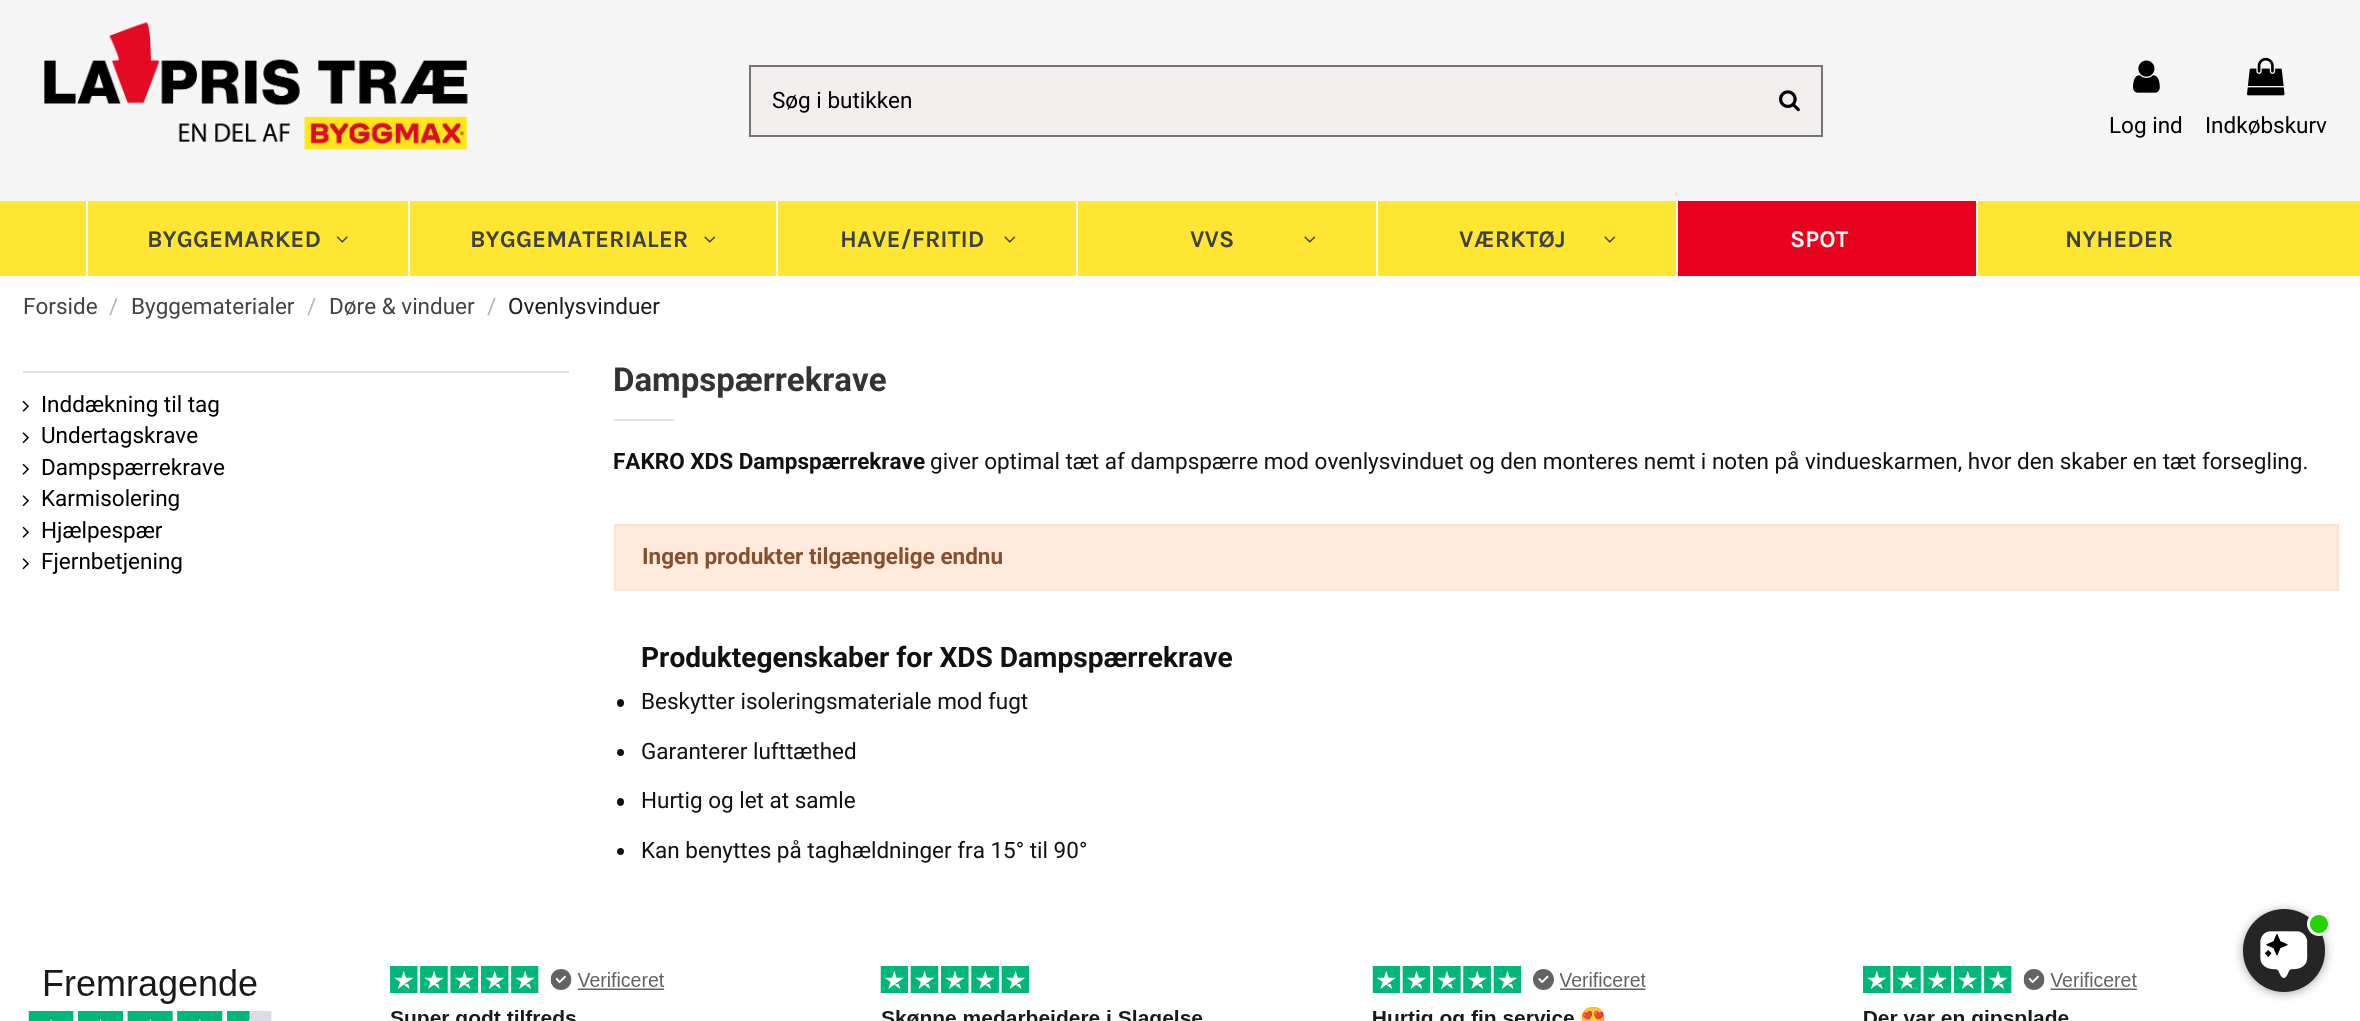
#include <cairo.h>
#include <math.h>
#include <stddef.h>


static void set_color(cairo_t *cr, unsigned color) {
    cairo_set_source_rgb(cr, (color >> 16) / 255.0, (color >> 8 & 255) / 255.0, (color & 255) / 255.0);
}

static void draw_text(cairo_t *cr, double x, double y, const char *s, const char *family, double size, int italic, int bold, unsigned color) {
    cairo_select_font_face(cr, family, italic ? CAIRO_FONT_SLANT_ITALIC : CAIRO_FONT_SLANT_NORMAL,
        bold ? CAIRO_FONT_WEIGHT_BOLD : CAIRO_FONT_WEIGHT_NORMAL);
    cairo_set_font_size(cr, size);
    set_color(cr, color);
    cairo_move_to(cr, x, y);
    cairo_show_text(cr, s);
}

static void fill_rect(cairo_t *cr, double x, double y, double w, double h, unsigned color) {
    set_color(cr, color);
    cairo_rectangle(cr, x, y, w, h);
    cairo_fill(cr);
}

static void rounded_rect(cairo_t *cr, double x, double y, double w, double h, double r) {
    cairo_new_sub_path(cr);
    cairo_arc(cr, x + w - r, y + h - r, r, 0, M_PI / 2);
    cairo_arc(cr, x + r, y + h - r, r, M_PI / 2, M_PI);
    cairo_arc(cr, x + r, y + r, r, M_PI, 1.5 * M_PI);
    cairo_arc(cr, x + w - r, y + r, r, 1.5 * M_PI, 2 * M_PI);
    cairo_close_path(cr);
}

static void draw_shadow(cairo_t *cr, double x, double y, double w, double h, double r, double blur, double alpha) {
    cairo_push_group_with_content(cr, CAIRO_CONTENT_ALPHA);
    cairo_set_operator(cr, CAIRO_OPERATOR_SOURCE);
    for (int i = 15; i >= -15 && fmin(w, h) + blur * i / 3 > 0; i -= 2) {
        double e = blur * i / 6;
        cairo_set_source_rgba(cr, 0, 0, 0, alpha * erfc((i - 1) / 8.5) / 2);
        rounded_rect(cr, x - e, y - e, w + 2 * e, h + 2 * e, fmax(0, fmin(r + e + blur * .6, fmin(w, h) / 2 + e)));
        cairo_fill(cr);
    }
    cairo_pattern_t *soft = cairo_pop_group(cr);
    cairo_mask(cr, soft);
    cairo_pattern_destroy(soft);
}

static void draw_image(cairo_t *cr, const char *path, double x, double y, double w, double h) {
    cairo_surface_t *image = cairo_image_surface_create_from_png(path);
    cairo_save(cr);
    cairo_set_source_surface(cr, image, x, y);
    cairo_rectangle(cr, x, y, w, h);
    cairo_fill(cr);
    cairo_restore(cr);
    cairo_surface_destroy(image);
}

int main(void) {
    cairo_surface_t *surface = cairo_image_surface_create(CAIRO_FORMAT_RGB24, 2360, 1021);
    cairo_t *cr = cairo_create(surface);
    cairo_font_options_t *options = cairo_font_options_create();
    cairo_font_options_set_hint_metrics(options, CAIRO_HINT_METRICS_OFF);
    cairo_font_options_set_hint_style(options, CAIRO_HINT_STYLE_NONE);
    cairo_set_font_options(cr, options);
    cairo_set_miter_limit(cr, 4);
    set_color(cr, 0xF5F5F5);
    cairo_paint(cr);
    draw_image(cr, "assets/img1.png", 44, 22, 424, 128);
    set_color(cr, 0xF2EEEE);
    cairo_rectangle(cr, 750, 66, 1072, 70);
    cairo_fill_preserve(cr);
    set_color(cr, 0x737373);
    cairo_stroke(cr);
    draw_text(cr, 772, 108, "Søg i butikken", "Roboto", 22.5, 0, 0, 0x000000);
    draw_image(cr, "assets/img2.png", 1779, 90, 21, 22);
    draw_image(cr, "assets/img3.png", 2133, 60, 27, 33);
    draw_text(cr, 2109, 133, "Log ind", "Roboto", 22.5, 0, 0, 0x000000);
    draw_image(cr, "assets/img4.png", 2247, 57, 38, 39);
    draw_text(cr, 2205, 133, "Indkøbskurv", "Roboto", 22.5, 0, 0, 0x000000);
    fill_rect(cr, 0, 201, 2360, 75, 0xFFE632);
    fill_rect(cr, 86, 201, 2, 75, 0xFFFFFF);
    draw_text(cr, 147, 247, "BYGGEMARKED", "Karla", 24, 0, 1, 0x3D4246);
    draw_image(cr, "assets/img5.png", 336, 236, 12, 7);
    fill_rect(cr, 408, 201, 2, 75, 0xFFFFFF);
    draw_text(cr, 470, 247, "BYGGEMATERIALER", "Karla", 24, 0, 1, 0x3D4246);
    draw_image(cr, "assets/img6.png", 704, 236, 12, 7);
    fill_rect(cr, 776, 201, 2, 75, 0xFFFFFF);
    draw_text(cr, 840, 247, "HAVE/FRITID", "Karla", 24, 0, 1, 0x3D4246);
    draw_image(cr, "assets/img6.png", 1004, 236, 12, 7);
    fill_rect(cr, 1076, 201, 2, 75, 0xFFFFFF);
    draw_text(cr, 1190, 247, "VVS", "Karla", 24, 0, 1, 0x3D4246);
    draw_image(cr, "assets/img6.png", 1304, 236, 12, 7);
    fill_rect(cr, 1376, 201, 2, 75, 0xFFFFFF);
    draw_text(cr, 1459, 247, "VÆRKTØJ", "Karla", 24, 0, 1, 0x3D4246);
    draw_image(cr, "assets/img6.png", 1604, 236, 12, 7);
    fill_rect(cr, 1678, 201, 298, 75, 0xEB001E);
    fill_rect(cr, 1676, 201, 2, 75, 0xFFFFFF);
    draw_text(cr, 1790, 247, "SPOT", "Karla", 24, 0, 1, 0xFFFFFF);
    fill_rect(cr, 1976, 201, 2, 75, 0xFFFFFF);
    draw_text(cr, 2065, 247, "NYHEDER", "Karla", 24, 0, 1, 0x3D4246);
    fill_rect(cr, 0, 276, 2360, 745, 0xFFFFFF);
    draw_text(cr, 23, 314, "Forside", "Roboto", 22.5, 0, 0, 0x434343);
    draw_text(cr, 109, 314, "/", "Roboto", 22.5, 0, 0, 0xB4B4B4);
    draw_text(cr, 131, 314, "Byggematerialer", "Roboto", 22.5, 0, 0, 0x434343);
    draw_text(cr, 307, 314, "/", "Roboto", 22.5, 0, 0, 0xB4B4B4);
    draw_text(cr, 329, 314, "Døre & vinduer", "Roboto", 22.5, 0, 0, 0x434343);
    draw_text(cr, 487, 314, "/", "Roboto", 22.5, 0, 0, 0xB4B4B4);
    draw_text(cr, 508, 314, "Ovenlysvinduer", "Roboto", 22.5, 0, 0, 0x1C1C1C);
    fill_rect(cr, 23, 371, 546, 2, 0xE3E3E3);
    draw_image(cr, "assets/img7.png", 22, 400, 7, 12);
    draw_text(cr, 41, 412, "Inddækning til tag", "Roboto", 22.5, 0, 0, 0x000000);
    draw_image(cr, "assets/img8.png", 22, 432, 7, 12);
    draw_text(cr, 41, 443, "Undertagskrave", "Roboto", 22.5, 0, 0, 0x000000);
    draw_image(cr, "assets/img7.png", 22, 463, 7, 12);
    draw_text(cr, 41, 475, "Dampspærrekrave", "Roboto", 22.5, 0, 0, 0x000000);
    draw_image(cr, "assets/img8.png", 22, 495, 7, 12);
    draw_text(cr, 41, 506, "Karmisolering", "Roboto", 22.5, 0, 0, 0x000000);
    draw_image(cr, "assets/img7.png", 22, 526, 7, 12);
    draw_text(cr, 41, 538, "Hjælpespær", "Roboto", 22.5, 0, 0, 0x000000);
    draw_image(cr, "assets/img8.png", 22, 558, 7, 12);
    draw_text(cr, 41, 569, "Fjernbetjening", "Roboto", 22.5, 0, 0, 0x000000);
    draw_text(cr, 613, 391, "Dampspærrekrave", "Roboto", 33, 0, 1, 0x333333);
    fill_rect(cr, 614, 419, 60, 2, 0xE3E3E3);
    draw_text(cr, 613, 469, "FAKRO XDS Dampspærrekrave", "Roboto", 22.5, 0, 1, 0x111111);
    draw_text(cr, 930, 469, "giver optimal tæt af dampspærre mod ovenlysvinduet og den monteres nemt i noten på vindueskarmen, hvor den skaber en tæt forsegling.", "Roboto", 22.5, 0, 0, 0x111111);
    set_color(cr, 0xFFEBDC);
    cairo_rectangle(cr, 615, 525, 1723, 65);
    cairo_fill_preserve(cr);
    set_color(cr, 0xFFE3CF);
    cairo_stroke(cr);
    draw_text(cr, 642, 564, "Ingen produkter tilgængelige endnu", "Roboto", 22.5, 0, 1, 0x85502B);
    draw_text(cr, 641, 667, "Produktegenskaber for XDS Dampspærrekrave", "Roboto", 28.1, 0, 1, 0x111111);
    rounded_rect(cr, 617, 699, 7, 8, 3.5);
    cairo_fill(cr);
    draw_text(cr, 641, 709, "Beskytter isoleringsmateriale mod fugt", "Roboto", 22.5, 0, 0, 0x111111);
    cairo_new_path(cr);
    cairo_arc(cr, 620.5, 752.5, 3.5, 0, 2 * M_PI);
    cairo_fill(cr);
    draw_text(cr, 641, 759, "Garanterer lufttæthed", "Roboto", 22.5, 0, 0, 0x111111);
    rounded_rect(cr, 617, 798, 7, 8, 3.5);
    cairo_fill(cr);
    draw_text(cr, 641, 808, "Hurtig og let at samle", "Roboto", 22.5, 0, 0, 0x111111);
    cairo_new_path(cr);
    cairo_arc(cr, 620.5, 851.5, 3.5, 0, 2 * M_PI);
    cairo_fill(cr);
    draw_text(cr, 641, 858, "Kan benyttes på taghældninger fra 15° til 90°", "Roboto", 22.5, 0, 0, 0x111111);
    draw_image(cr, "assets/img9.png", 28, 966, 2109, 55);
    set_color(cr, 0x000000);
    draw_shadow(cr, 2243, 911, 82, 82, 41, 5, 0.35);
    set_color(cr, 0x252525);
    rounded_rect(cr, 2243, 909, 82, 83, 41);
    cairo_fill(cr);
    draw_image(cr, "assets/img10.png", 2260, 931, 48, 47);
    set_color(cr, 0x25D300);
    cairo_arc(cr, 2319, 924, 10.5, 0, 2 * M_PI);
    cairo_fill_preserve(cr);
    set_color(cr, 0xFFFFFF);
    cairo_set_line_width(cr, 3);
    cairo_stroke(cr);
    cairo_surface_write_to_png(surface, "output.png");
    cairo_font_options_destroy(options);
    cairo_destroy(cr);
    cairo_surface_destroy(surface);
    return 0;
}
